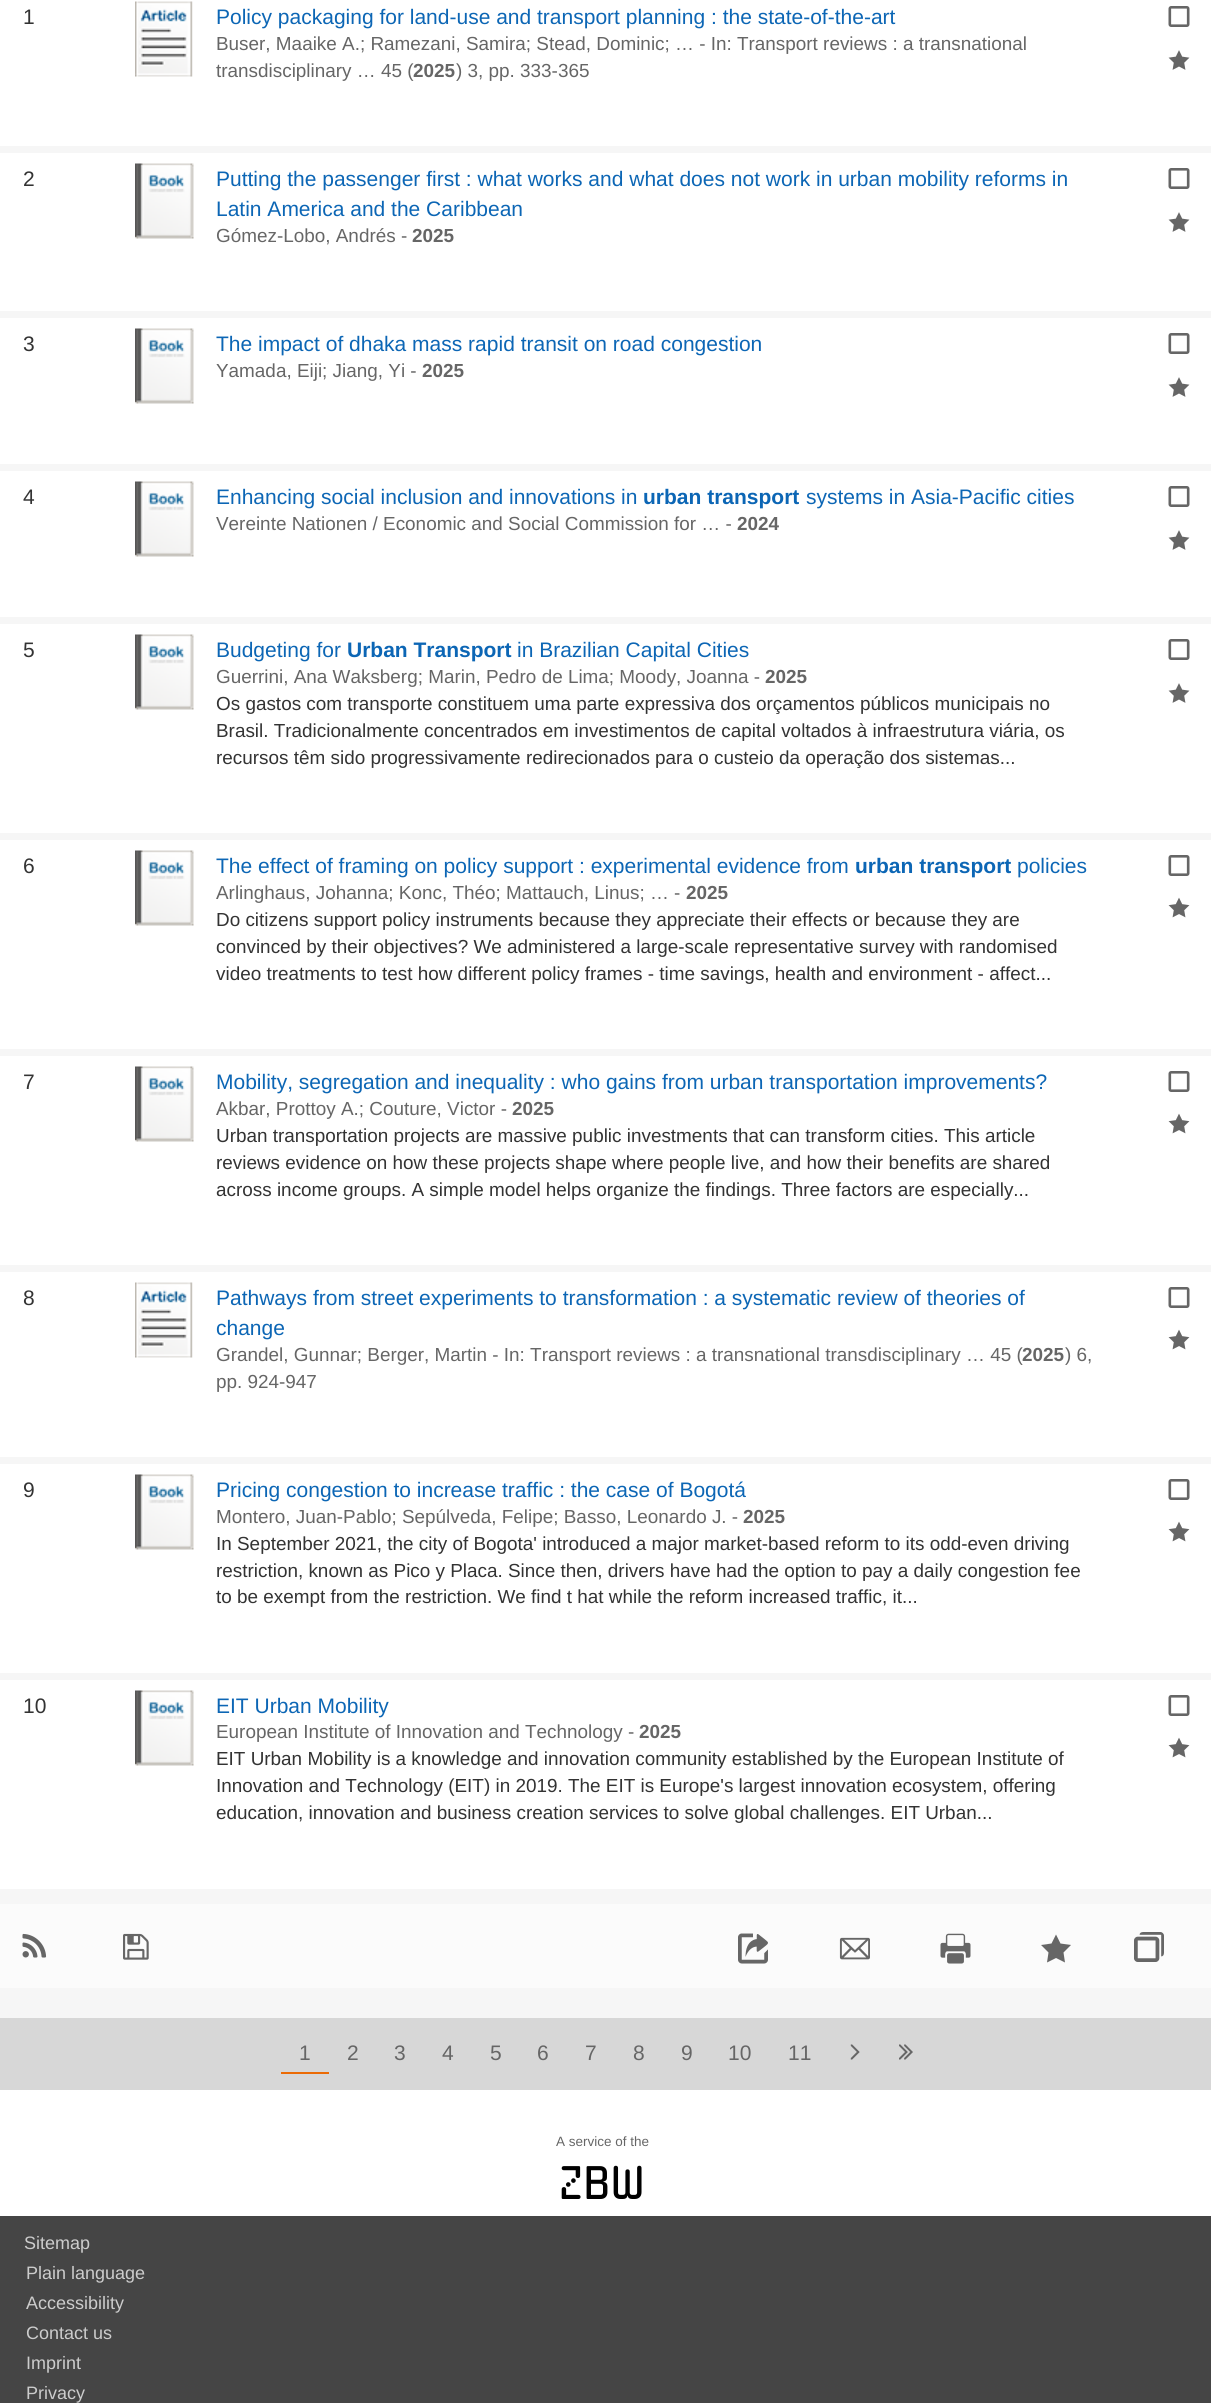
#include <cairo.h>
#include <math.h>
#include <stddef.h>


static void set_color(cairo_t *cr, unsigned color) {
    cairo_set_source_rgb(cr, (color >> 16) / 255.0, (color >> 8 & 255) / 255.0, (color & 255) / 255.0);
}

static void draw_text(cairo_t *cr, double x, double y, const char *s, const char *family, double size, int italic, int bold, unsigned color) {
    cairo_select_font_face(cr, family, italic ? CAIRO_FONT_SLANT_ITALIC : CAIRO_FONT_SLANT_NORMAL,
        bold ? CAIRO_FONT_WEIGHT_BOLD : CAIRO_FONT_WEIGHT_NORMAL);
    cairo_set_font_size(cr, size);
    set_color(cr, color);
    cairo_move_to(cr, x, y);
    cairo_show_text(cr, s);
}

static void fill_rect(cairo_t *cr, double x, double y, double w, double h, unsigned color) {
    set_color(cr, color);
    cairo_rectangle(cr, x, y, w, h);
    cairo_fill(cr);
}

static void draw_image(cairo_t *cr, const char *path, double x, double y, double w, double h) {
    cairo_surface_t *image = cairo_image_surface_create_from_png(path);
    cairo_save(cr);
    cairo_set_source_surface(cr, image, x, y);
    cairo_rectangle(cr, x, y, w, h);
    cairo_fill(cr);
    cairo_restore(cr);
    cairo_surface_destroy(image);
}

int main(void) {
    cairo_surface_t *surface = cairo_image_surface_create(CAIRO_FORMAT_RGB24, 1211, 2403);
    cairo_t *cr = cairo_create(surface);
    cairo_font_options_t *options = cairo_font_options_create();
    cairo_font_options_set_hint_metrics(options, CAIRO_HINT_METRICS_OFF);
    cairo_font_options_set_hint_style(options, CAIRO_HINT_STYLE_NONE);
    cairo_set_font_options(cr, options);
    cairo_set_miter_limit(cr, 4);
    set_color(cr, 0xFFFFFF);
    cairo_paint(cr);
    fill_rect(cr, 0, 146, 1211, 1872, 0xF6F6F6);
    draw_text(cr, 23, 24, "1", "Liberation Sans", 21, 0, 0, 0x333333);
    draw_image(cr, "assets/img1.png", 135, 1, 58, 76);
    draw_text(cr, 216, 24, "Policy packaging for land-use and transport planning : the state-of-the-art", "Liberation Sans", 21, 0, 0, 0x0C66B5);
    draw_text(cr, 216, 50, "Buser, Maaike A.; Ramezani, Samira; Stead, Dominic; … - In: Transport reviews : a transnational", "Liberation Sans", 18.9, 0, 0, 0x666666);
    draw_text(cr, 216, 77, "transdisciplinary … 45 (", "Liberation Sans", 18.9, 0, 0, 0x666666);
    draw_text(cr, 413, 77, "2025", "Liberation Sans", 18.9, 0, 1, 0x666666);
    draw_text(cr, 456, 77, ") 3, pp. 333-365", "Liberation Sans", 18.9, 0, 0, 0x666666);
    draw_image(cr, "assets/img2.png", 1168, 6, 22, 21);
    draw_image(cr, "assets/img3.png", 1168, 50, 22, 20);
    fill_rect(cr, 0, 153, 1211, 158, 0xFFFFFF);
    draw_text(cr, 23, 186, "2", "Liberation Sans", 21, 0, 0, 0x333333);
    draw_image(cr, "assets/img4.png", 135, 163, 59, 76);
    draw_text(cr, 216, 186, "Putting the passenger first : what works and what does not work in urban mobility reforms in", "Liberation Sans", 21, 0, 0, 0x0C66B5);
    draw_text(cr, 216, 216, "Latin America and the Caribbean", "Liberation Sans", 21, 0, 0, 0x0C66B5);
    draw_text(cr, 216, 242, "Gómez-Lobo, Andrés -", "Liberation Sans", 18.9, 0, 0, 0x666666);
    draw_text(cr, 412, 242, "2025", "Liberation Sans", 18.9, 0, 1, 0x666666);
    draw_image(cr, "assets/img2.png", 1168, 168, 22, 21);
    draw_image(cr, "assets/img3.png", 1168, 212, 22, 20);
    fill_rect(cr, 0, 318, 1211, 146, 0xFFFFFF);
    draw_text(cr, 23, 351, "3", "Liberation Sans", 21, 0, 0, 0x333333);
    draw_image(cr, "assets/img4.png", 135, 328, 59, 76);
    draw_text(cr, 216, 351, "The impact of dhaka mass rapid transit on road congestion", "Liberation Sans", 21, 0, 0, 0x0C66B5);
    draw_text(cr, 216, 377, "Yamada, Eiji; Jiang, Yi -", "Liberation Sans", 18.9, 0, 0, 0x666666);
    draw_text(cr, 422, 377, "2025", "Liberation Sans", 18.9, 0, 1, 0x666666);
    draw_image(cr, "assets/img2.png", 1168, 333, 22, 21);
    draw_image(cr, "assets/img3.png", 1168, 377, 22, 20);
    fill_rect(cr, 0, 471, 1211, 146, 0xFFFFFF);
    draw_text(cr, 23, 504, "4", "Liberation Sans", 21, 0, 0, 0x333333);
    draw_image(cr, "assets/img4.png", 135, 481, 59, 76);
    draw_text(cr, 216, 504, "Enhancing social inclusion and innovations in", "Liberation Sans", 21, 0, 0, 0x0C66B5);
    draw_text(cr, 643, 504, "urban transport", "Liberation Sans", 21, 0, 1, 0x0C66B5);
    draw_text(cr, 806, 504, "systems in Asia-Pacific cities", "Liberation Sans", 21, 0, 0, 0x0C66B5);
    draw_text(cr, 216, 530, "Vereinte Nationen / Economic and Social Commission for … -", "Liberation Sans", 18.9, 0, 0, 0x666666);
    draw_text(cr, 737, 530, "2024", "Liberation Sans", 18.9, 0, 1, 0x666666);
    draw_image(cr, "assets/img2.png", 1168, 486, 22, 21);
    draw_image(cr, "assets/img3.png", 1168, 530, 22, 20);
    fill_rect(cr, 0, 624, 1211, 209, 0xFFFFFF);
    draw_text(cr, 23, 657, "5", "Liberation Sans", 21, 0, 0, 0x333333);
    draw_image(cr, "assets/img4.png", 135, 634, 59, 76);
    draw_text(cr, 216, 657, "Budgeting for", "Liberation Sans", 21, 0, 0, 0x0C66B5);
    draw_text(cr, 347, 657, "Urban Transport", "Liberation Sans", 21, 0, 1, 0x0C66B5);
    draw_text(cr, 517, 657, "in Brazilian Capital Cities", "Liberation Sans", 21, 0, 0, 0x0C66B5);
    draw_text(cr, 216, 683, "Guerrini, Ana Waksberg; Marin, Pedro de Lima; Moody, Joanna -", "Liberation Sans", 18.9, 0, 0, 0x666666);
    draw_text(cr, 765, 683, "2025", "Liberation Sans", 18.9, 0, 1, 0x666666);
    draw_text(cr, 216, 710, "Os gastos com transporte constituem uma parte expressiva dos orçamentos públicos municipais no", "Liberation Sans", 18.9, 0, 0, 0x333333);
    draw_text(cr, 216, 737, "Brasil. Tradicionalmente concentrados em investimentos de capital voltados à infraestrutura viária, os", "Liberation Sans", 18.9, 0, 0, 0x333333);
    draw_text(cr, 216, 764, "recursos têm sido progressivamente redirecionados para o custeio da operação dos sistemas...", "Liberation Sans", 18.9, 0, 0, 0x333333);
    draw_image(cr, "assets/img2.png", 1168, 639, 22, 21);
    draw_image(cr, "assets/img3.png", 1168, 683, 22, 20);
    fill_rect(cr, 0, 840, 1211, 209, 0xFFFFFF);
    draw_text(cr, 23, 873, "6", "Liberation Sans", 21, 0, 0, 0x333333);
    draw_image(cr, "assets/img4.png", 135, 850, 59, 76);
    draw_text(cr, 216, 873, "The effect of framing on policy support : experimental evidence from", "Liberation Sans", 21, 0, 0, 0x0C66B5);
    draw_text(cr, 855, 873, "urban transport", "Liberation Sans", 21, 0, 1, 0x0C66B5);
    draw_text(cr, 1017, 873, "policies", "Liberation Sans", 21, 0, 0, 0x0C66B5);
    draw_text(cr, 216, 899, "Arlinghaus, Johanna; Konc, Théo; Mattauch, Linus; … -", "Liberation Sans", 18.9, 0, 0, 0x666666);
    draw_text(cr, 686, 899, "2025", "Liberation Sans", 18.9, 0, 1, 0x666666);
    draw_text(cr, 216, 926, "Do citizens support policy instruments because they appreciate their effects or because they are", "Liberation Sans", 18.9, 0, 0, 0x333333);
    draw_text(cr, 216, 953, "convinced by their objectives? We administered a large-scale representative survey with randomised", "Liberation Sans", 18.9, 0, 0, 0x333333);
    draw_text(cr, 216, 980, "video treatments to test how different policy frames - time savings, health and environment - affect...", "Liberation Sans", 18.9, 0, 0, 0x333333);
    draw_image(cr, "assets/img2.png", 1168, 855, 22, 21);
    draw_image(cr, "assets/img5.png", 1168, 897, 22, 21);
    fill_rect(cr, 0, 1056, 1211, 209, 0xFFFFFF);
    draw_text(cr, 23, 1089, "7", "Liberation Sans", 21, 0, 0, 0x333333);
    draw_image(cr, "assets/img4.png", 135, 1066, 59, 76);
    draw_text(cr, 216, 1089, "Mobility, segregation and inequality : who gains from urban transportation improvements?", "Liberation Sans", 21, 0, 0, 0x0C66B5);
    draw_text(cr, 216, 1115, "Akbar, Prottoy A.; Couture, Victor -", "Liberation Sans", 18.9, 0, 0, 0x666666);
    draw_text(cr, 512, 1115, "2025", "Liberation Sans", 18.9, 0, 1, 0x666666);
    draw_text(cr, 216, 1142, "Urban transportation projects are massive public investments that can transform cities. This article", "Liberation Sans", 18.9, 0, 0, 0x333333);
    draw_text(cr, 216, 1169, "reviews evidence on how these projects shape where people live, and how their benefits are shared", "Liberation Sans", 18.9, 0, 0, 0x333333);
    draw_text(cr, 216, 1196, "across income groups. A simple model helps organize the findings. Three factors are especially...", "Liberation Sans", 18.9, 0, 0, 0x333333);
    draw_image(cr, "assets/img2.png", 1168, 1071, 22, 21);
    draw_image(cr, "assets/img5.png", 1168, 1113, 22, 21);
    fill_rect(cr, 0, 1272, 1211, 185, 0xFFFFFF);
    draw_text(cr, 23, 1305, "8", "Liberation Sans", 21, 0, 0, 0x333333);
    draw_image(cr, "assets/img1.png", 135, 1282, 58, 76);
    draw_text(cr, 216, 1305, "Pathways from street experiments to transformation : a systematic review of theories of", "Liberation Sans", 21, 0, 0, 0x0C66B5);
    draw_text(cr, 216, 1335, "change", "Liberation Sans", 21, 0, 0, 0x0C66B5);
    draw_text(cr, 216, 1361, "Grandel, Gunnar; Berger, Martin - In: Transport reviews : a transnational transdisciplinary … 45 (", "Liberation Sans", 18.9, 0, 0, 0x666666);
    draw_text(cr, 1022, 1361, "2025", "Liberation Sans", 18.9, 0, 1, 0x666666);
    draw_text(cr, 1065, 1361, ") 6,", "Liberation Sans", 18.9, 0, 0, 0x666666);
    draw_text(cr, 216, 1388, "pp. 924-947", "Liberation Sans", 18.9, 0, 0, 0x666666);
    draw_image(cr, "assets/img2.png", 1168, 1287, 22, 21);
    draw_image(cr, "assets/img5.png", 1168, 1329, 22, 21);
    fill_rect(cr, 0, 1464, 1211, 209, 0xFFFFFF);
    draw_text(cr, 23, 1497, "9", "Liberation Sans", 21, 0, 0, 0x333333);
    draw_image(cr, "assets/img4.png", 135, 1474, 59, 76);
    draw_text(cr, 216, 1497, "Pricing congestion to increase traffic : the case of Bogotá", "Liberation Sans", 21, 0, 0, 0x0C66B5);
    draw_text(cr, 216, 1523, "Montero, Juan-Pablo; Sepúlveda, Felipe; Basso, Leonardo J. -", "Liberation Sans", 18.9, 0, 0, 0x666666);
    draw_text(cr, 743, 1523, "2025", "Liberation Sans", 18.9, 0, 1, 0x666666);
    draw_text(cr, 216, 1550, "In September 2021, the city of Bogota' introduced a major market-based reform to its odd-even driving", "Liberation Sans", 18.9, 0, 0, 0x333333);
    draw_text(cr, 216, 1577, "restriction, known as Pico y Placa. Since then, drivers have had the option to pay a daily congestion fee", "Liberation Sans", 18.9, 0, 0, 0x333333);
    draw_text(cr, 216, 1603, "to be exempt from the restriction. We find t hat while the reform increased traffic, it...", "Liberation Sans", 18.9, 0, 0, 0x333333);
    draw_image(cr, "assets/img2.png", 1168, 1479, 22, 21);
    draw_image(cr, "assets/img5.png", 1168, 1521, 22, 21);
    fill_rect(cr, 0, 1680, 1211, 209, 0xFFFFFF);
    draw_text(cr, 23, 1713, "10", "Liberation Sans", 21, 0, 0, 0x333333);
    draw_image(cr, "assets/img4.png", 135, 1690, 59, 76);
    draw_text(cr, 216, 1713, "EIT Urban Mobility", "Liberation Sans", 21, 0, 0, 0x0C66B5);
    draw_text(cr, 216, 1738, "European Institute of Innovation and Technology -", "Liberation Sans", 18.9, 0, 0, 0x666666);
    draw_text(cr, 639, 1738, "2025", "Liberation Sans", 18.9, 0, 1, 0x666666);
    draw_text(cr, 216, 1765, "EIT Urban Mobility is a knowledge and innovation community established by the European Institute of", "Liberation Sans", 18.9, 0, 0, 0x333333);
    draw_text(cr, 216, 1792, "Innovation and Technology (EIT) in 2019. The EIT is Europe's largest innovation ecosystem, offering", "Liberation Sans", 18.9, 0, 0, 0x333333);
    draw_text(cr, 216, 1819, "education, innovation and business creation services to solve global challenges. EIT Urban...", "Liberation Sans", 18.9, 0, 0, 0x333333);
    draw_image(cr, "assets/img2.png", 1168, 1695, 22, 21);
    draw_image(cr, "assets/img5.png", 1168, 1737, 22, 21);
    fill_rect(cr, 0, 1904, 1211, 84, 0xFBFBFB);
    draw_image(cr, "assets/img6.png", 22, 1933, 25, 25);
    draw_image(cr, "assets/img7.png", 123, 1933, 26, 27);
    draw_image(cr, "assets/img8.png", 738, 1933, 30, 31);
    draw_image(cr, "assets/img9.png", 839, 1937, 31, 23);
    draw_image(cr, "assets/img10.png", 940, 1933, 31, 31);
    set_color(cr, 0x666666);
    cairo_new_path(cr);
    cairo_move_to(cr, 1056, 1934.5);
    cairo_line_to(cr, 1051.5, 1943.5);
    cairo_line_to(cr, 1041, 1945);
    cairo_line_to(cr, 1048.5, 1952.5);
    cairo_line_to(cr, 1047, 1962.5);
    cairo_line_to(cr, 1056, 1958);
    cairo_line_to(cr, 1065, 1962.5);
    cairo_line_to(cr, 1063.5, 1952.5);
    cairo_line_to(cr, 1071, 1945);
    cairo_line_to(cr, 1060.5, 1943.5);
    cairo_close_path(cr);
    cairo_fill(cr);
    draw_image(cr, "assets/img11.png", 1134, 1932, 30, 30);
    fill_rect(cr, 0, 2018, 1211, 72, 0xD7D7D7);
    fill_rect(cr, 281, 2072, 48, 2, 0xEB6B05);
    draw_text(cr, 299, 2060, "1", "Liberation Sans", 21, 0, 0, 0x666666);
    draw_text(cr, 347, 2060, "2", "Liberation Sans", 21, 0, 0, 0x666666);
    draw_text(cr, 394, 2060, "3", "Liberation Sans", 21, 0, 0, 0x666666);
    draw_text(cr, 442, 2060, "4", "Liberation Sans", 21, 0, 0, 0x666666);
    draw_text(cr, 490, 2060, "5", "Liberation Sans", 21, 0, 0, 0x666666);
    draw_text(cr, 537, 2060, "6", "Liberation Sans", 21, 0, 0, 0x666666);
    draw_text(cr, 585, 2060, "7", "Liberation Sans", 21, 0, 0, 0x666666);
    draw_text(cr, 633, 2060, "8", "Liberation Sans", 21, 0, 0, 0x666666);
    draw_text(cr, 681, 2060, "9", "Liberation Sans", 21, 0, 0, 0x666666);
    draw_text(cr, 728, 2060, "10", "Liberation Sans", 21, 0, 0, 0x666666);
    draw_text(cr, 788, 2060, "11", "Liberation Sans", 21, 0, 0, 0x666666);
    draw_image(cr, "assets/img12.png", 850, 2044, 10, 16);
    draw_image(cr, "assets/img13.png", 899, 2044, 14, 16);
    draw_text(cr, 556, 2146, "A service of the", "Liberation Sans", 13.5, 0, 0, 0x666666);
    draw_text(cr, 559, 2199, "zbw", "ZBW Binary", 45, 0, 0, 0x000000);
    fill_rect(cr, 0, 2216, 1211, 187, 0x454545);
    draw_text(cr, 24, 2249, "Sitemap", "Liberation Sans", 18, 0, 0, 0xCCCCCC);
    draw_text(cr, 26, 2279, "Plain language", "Liberation Sans", 18, 0, 0, 0xCCCCCC);
    draw_text(cr, 26, 2309, "Accessibility", "Liberation Sans", 18, 0, 0, 0xCCCCCC);
    draw_text(cr, 26, 2339, "Contact us", "Liberation Sans", 18, 0, 0, 0xCCCCCC);
    draw_text(cr, 26, 2369, "Imprint", "Liberation Sans", 18, 0, 0, 0xCCCCCC);
    draw_text(cr, 26, 2399, "Privacy", "Liberation Sans", 18, 0, 0, 0xCCCCCC);
    cairo_surface_write_to_png(surface, "output.png");
    cairo_font_options_destroy(options);
    cairo_destroy(cr);
    cairo_surface_destroy(surface);
    return 0;
}
